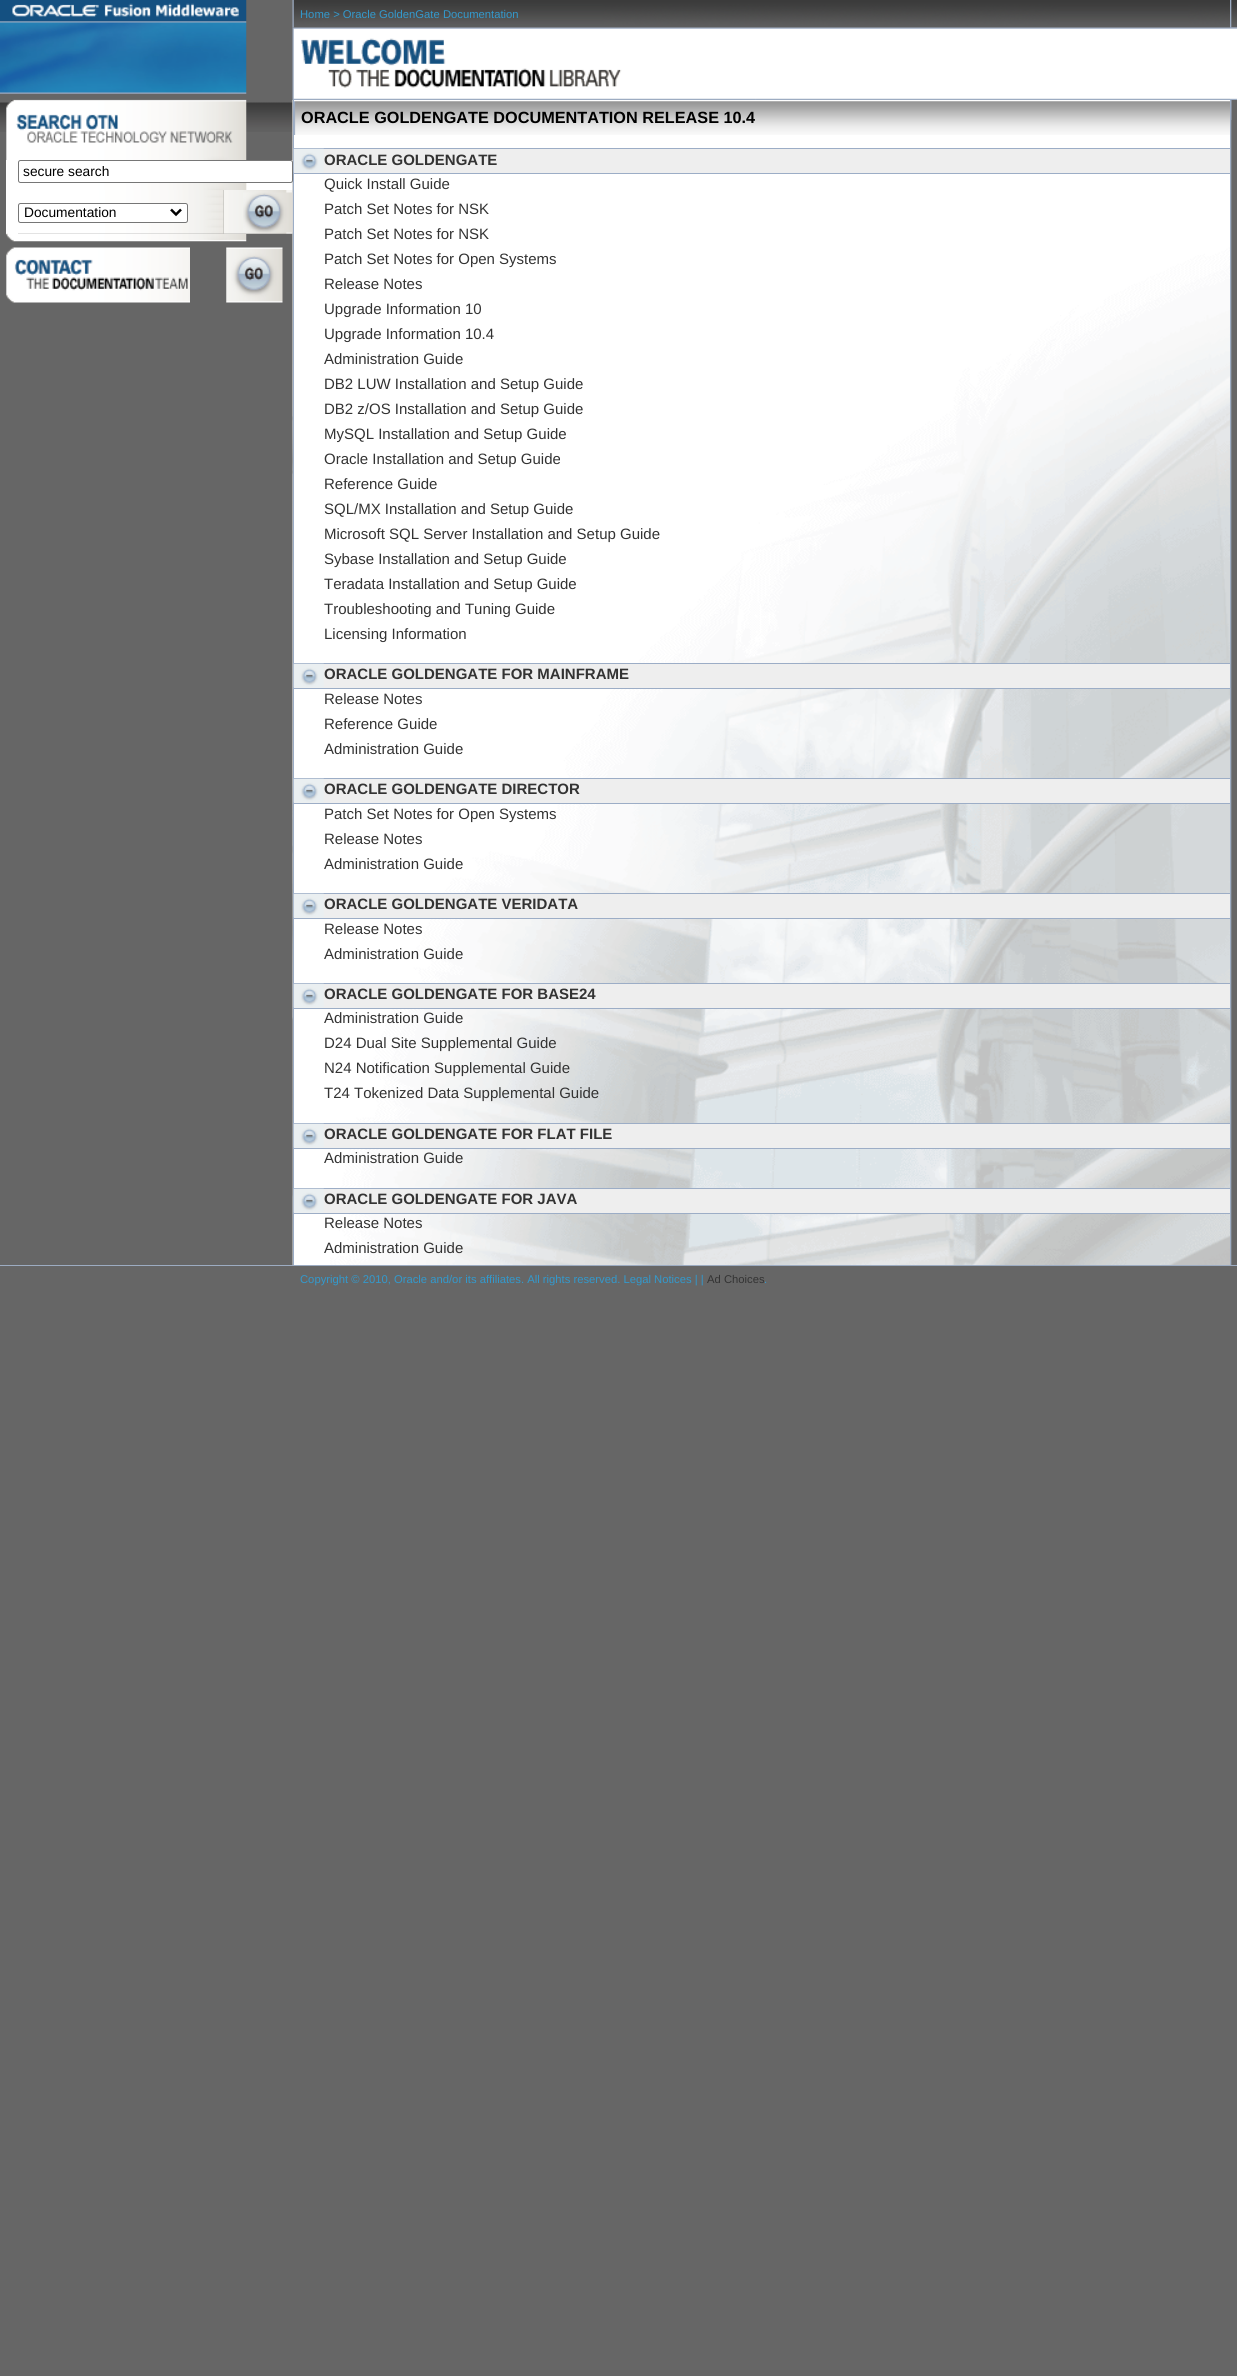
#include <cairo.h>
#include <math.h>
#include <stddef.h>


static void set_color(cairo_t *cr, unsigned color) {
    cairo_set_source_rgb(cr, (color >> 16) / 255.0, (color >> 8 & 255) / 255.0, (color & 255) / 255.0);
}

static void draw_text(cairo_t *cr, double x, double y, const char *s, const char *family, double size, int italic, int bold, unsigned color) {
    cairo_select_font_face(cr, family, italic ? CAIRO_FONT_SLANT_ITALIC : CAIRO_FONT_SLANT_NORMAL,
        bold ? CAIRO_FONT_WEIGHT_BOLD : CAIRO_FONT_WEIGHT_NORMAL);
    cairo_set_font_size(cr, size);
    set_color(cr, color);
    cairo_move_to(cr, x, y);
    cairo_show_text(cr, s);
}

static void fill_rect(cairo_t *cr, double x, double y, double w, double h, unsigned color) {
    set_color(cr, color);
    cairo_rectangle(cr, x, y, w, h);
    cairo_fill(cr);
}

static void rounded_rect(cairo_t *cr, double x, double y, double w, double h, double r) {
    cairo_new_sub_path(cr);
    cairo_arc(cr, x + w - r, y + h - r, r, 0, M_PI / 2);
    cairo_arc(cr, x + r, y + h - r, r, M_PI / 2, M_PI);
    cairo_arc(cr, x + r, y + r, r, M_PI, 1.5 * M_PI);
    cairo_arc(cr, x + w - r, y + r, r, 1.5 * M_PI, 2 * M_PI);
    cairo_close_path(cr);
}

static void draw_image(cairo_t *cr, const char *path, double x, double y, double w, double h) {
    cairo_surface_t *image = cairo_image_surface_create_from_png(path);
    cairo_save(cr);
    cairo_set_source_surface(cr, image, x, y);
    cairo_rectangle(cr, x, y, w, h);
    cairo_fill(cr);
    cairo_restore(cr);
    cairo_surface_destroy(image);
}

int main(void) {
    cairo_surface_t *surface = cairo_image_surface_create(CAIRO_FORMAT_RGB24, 1237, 2376);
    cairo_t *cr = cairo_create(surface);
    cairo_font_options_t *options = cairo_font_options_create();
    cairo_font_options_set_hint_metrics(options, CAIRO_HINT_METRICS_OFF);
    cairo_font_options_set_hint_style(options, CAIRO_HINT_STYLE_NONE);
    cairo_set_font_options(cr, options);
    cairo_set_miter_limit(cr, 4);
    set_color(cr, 0x666666);
    cairo_paint(cr);
    draw_image(cr, "assets/img1.png", 292, 0, 938, 28);
    draw_text(cr, 300, 18, "Home > Oracle GoldenGate Documentation", "Liberation Sans", 11.25, 0, 0, 0x3399CC);
    draw_image(cr, "assets/img2.png", 1230, 0, 7, 28);
    draw_image(cr, "assets/img3.png", 0, 102, 293, 30);
    draw_image(cr, "assets/img4.png", 0, 0, 247, 94);
    draw_image(cr, "assets/img5.png", 6, 99, 241, 61);
    fill_rect(cr, 6, 160, 12, 74, 0xFFFFFF);
    draw_image(cr, "assets/img6.png", 18, 160, 275, 30);
    draw_image(cr, "assets/img7.png", 18, 190, 206, 44);
    draw_image(cr, "assets/img8.png", 223, 190, 70, 44);
    draw_image(cr, "assets/img16.png", 292, 100, 938, 1165);
    rounded_rect(cr, 18.5, 160.5, 274, 22, 2);
    cairo_fill_preserve(cr);
    set_color(cr, 0x767676);
    cairo_set_line_width(cr, 1);
    cairo_stroke(cr);
    draw_text(cr, 23, 176, "secure search", "Liberation Sans", 13.75, 0, 0, 0x000000);
    set_color(cr, 0xFFFFFF);
    rounded_rect(cr, 18.5, 203.5, 169, 19, 2);
    cairo_fill_preserve(cr);
    set_color(cr, 0x767676);
    cairo_stroke(cr);
    cairo_new_path(cr);
    cairo_move_to(cr, 171, 209.5);
    cairo_line_to(cr, 176, 214.5);
    cairo_line_to(cr, 181, 209.5);
    set_color(cr, 0x000000);
    cairo_set_line_width(cr, 2.5);
    cairo_stroke(cr);
    draw_text(cr, 24, 217, "Documentation", "Liberation Sans", 13.75, 0, 0, 0x000000);
    draw_image(cr, "assets/img9.png", 243, 192, 50, 41);
    draw_image(cr, "assets/img10.png", 6, 233, 241, 9);
    draw_image(cr, "assets/img11.png", 6, 247, 184, 56);
    draw_image(cr, "assets/img12.png", 226, 247, 57, 56);
    draw_image(cr, "assets/img13.png", 292, 27, 938, 73);
    draw_image(cr, "assets/img14.png", 1230, 27, 7, 73);
    draw_image(cr, "assets/img15.png", 1230, 27, 7, 72);
    fill_rect(cr, 293, 100, 1, 1165, 0x9CADC6);
    draw_image(cr, "assets/img17.png", 294, 101, 936, 34);
    draw_text(cr, 301, 123, "ORACLE GOLDENGATE DOCUMENTATION RELEASE 10.4", "Liberation Sans", 16.25, 0, 1, 0x000000);
    fill_rect(cr, 294, 149, 936, 24, 0xEEEEEE);
    fill_rect(cr, 294, 148, 936, 1, 0x9CADC6);
    fill_rect(cr, 294, 173, 936, 1, 0x9CADC6);
    draw_image(cr, "assets/img18.png", 293, 148, 31, 25);
    draw_text(cr, 324, 165, "ORACLE GOLDENGATE", "Liberation Sans", 15, 0, 1, 0x333333);
    draw_text(cr, 324, 189, "Quick Install Guide", "Liberation Sans", 15, 0, 0, 0x333333);
    draw_text(cr, 324, 214, "Patch Set Notes for NSK", "Liberation Sans", 15, 0, 0, 0x333333);
    draw_text(cr, 324, 239, "Patch Set Notes for NSK", "Liberation Sans", 15, 0, 0, 0x333333);
    draw_text(cr, 324, 264, "Patch Set Notes for Open Systems", "Liberation Sans", 15, 0, 0, 0x333333);
    draw_text(cr, 324, 289, "Release Notes", "Liberation Sans", 15, 0, 0, 0x333333);
    draw_text(cr, 324, 314, "Upgrade Information 10", "Liberation Sans", 15, 0, 0, 0x333333);
    draw_text(cr, 324, 339, "Upgrade Information 10.4", "Liberation Sans", 15, 0, 0, 0x333333);
    draw_text(cr, 324, 364, "Administration Guide", "Liberation Sans", 15, 0, 0, 0x333333);
    draw_text(cr, 324, 389, "DB2 LUW Installation and Setup Guide", "Liberation Sans", 15, 0, 0, 0x333333);
    draw_text(cr, 324, 414, "DB2 z/OS Installation and Setup Guide", "Liberation Sans", 15, 0, 0, 0x333333);
    draw_text(cr, 324, 439, "MySQL Installation and Setup Guide", "Liberation Sans", 15, 0, 0, 0x333333);
    draw_text(cr, 324, 464, "Oracle Installation and Setup Guide", "Liberation Sans", 15, 0, 0, 0x333333);
    draw_text(cr, 324, 489, "Reference Guide", "Liberation Sans", 15, 0, 0, 0x333333);
    draw_text(cr, 324, 514, "SQL/MX Installation and Setup Guide", "Liberation Sans", 15, 0, 0, 0x333333);
    draw_text(cr, 324, 539, "Microsoft SQL Server Installation and Setup Guide", "Liberation Sans", 15, 0, 0, 0x333333);
    draw_text(cr, 324, 564, "Sybase Installation and Setup Guide", "Liberation Sans", 15, 0, 0, 0x333333);
    draw_text(cr, 324, 589, "Teradata Installation and Setup Guide", "Liberation Sans", 15, 0, 0, 0x333333);
    draw_text(cr, 324, 614, "Troubleshooting and Tuning Guide", "Liberation Sans", 15, 0, 0, 0x333333);
    draw_text(cr, 324, 639, "Licensing Information", "Liberation Sans", 15, 0, 0, 0x333333);
    fill_rect(cr, 294, 664, 936, 24, 0xEEEEEE);
    fill_rect(cr, 294, 663, 936, 1, 0x9CADC6);
    fill_rect(cr, 294, 688, 936, 1, 0x9CADC6);
    draw_image(cr, "assets/img18.png", 293, 663, 31, 25);
    draw_text(cr, 324, 679, "ORACLE GOLDENGATE FOR MAINFRAME", "Liberation Sans", 15, 0, 1, 0x333333);
    draw_text(cr, 324, 704, "Release Notes", "Liberation Sans", 15, 0, 0, 0x333333);
    draw_text(cr, 324, 729, "Reference Guide", "Liberation Sans", 15, 0, 0, 0x333333);
    draw_text(cr, 324, 754, "Administration Guide", "Liberation Sans", 15, 0, 0, 0x333333);
    fill_rect(cr, 294, 779, 936, 24, 0xEEEEEE);
    fill_rect(cr, 294, 778, 936, 1, 0x9CADC6);
    fill_rect(cr, 294, 803, 936, 1, 0x9CADC6);
    draw_image(cr, "assets/img19.png", 293, 778, 31, 25);
    draw_text(cr, 324, 794, "ORACLE GOLDENGATE DIRECTOR", "Liberation Sans", 15, 0, 1, 0x333333);
    draw_text(cr, 324, 819, "Patch Set Notes for Open Systems", "Liberation Sans", 15, 0, 0, 0x333333);
    draw_text(cr, 324, 844, "Release Notes", "Liberation Sans", 15, 0, 0, 0x333333);
    draw_text(cr, 324, 869, "Administration Guide", "Liberation Sans", 15, 0, 0, 0x333333);
    fill_rect(cr, 294, 894, 936, 24, 0xEEEEEE);
    fill_rect(cr, 294, 893, 936, 1, 0x9CADC6);
    fill_rect(cr, 294, 918, 936, 1, 0x9CADC6);
    draw_image(cr, "assets/img18.png", 293, 893, 31, 25);
    draw_text(cr, 324, 909, "ORACLE GOLDENGATE VERIDATA", "Liberation Sans", 15, 0, 1, 0x333333);
    draw_text(cr, 324, 934, "Release Notes", "Liberation Sans", 15, 0, 0, 0x333333);
    draw_text(cr, 324, 959, "Administration Guide", "Liberation Sans", 15, 0, 0, 0x333333);
    fill_rect(cr, 294, 984, 936, 24, 0xEEEEEE);
    fill_rect(cr, 294, 983, 936, 1, 0x9CADC6);
    fill_rect(cr, 294, 1008, 936, 1, 0x9CADC6);
    draw_image(cr, "assets/img18.png", 293, 983, 31, 25);
    draw_text(cr, 324, 999, "ORACLE GOLDENGATE FOR BASE24", "Liberation Sans", 15, 0, 1, 0x333333);
    draw_text(cr, 324, 1023, "Administration Guide", "Liberation Sans", 15, 0, 0, 0x333333);
    draw_text(cr, 324, 1048, "D24 Dual Site Supplemental Guide", "Liberation Sans", 15, 0, 0, 0x333333);
    draw_text(cr, 324, 1073, "N24 Notification Supplemental Guide", "Liberation Sans", 15, 0, 0, 0x333333);
    draw_text(cr, 324, 1098, "T24 Tokenized Data Supplemental Guide", "Liberation Sans", 15, 0, 0, 0x333333);
    fill_rect(cr, 294, 1124, 936, 24, 0xEEEEEE);
    fill_rect(cr, 294, 1123, 936, 1, 0x9CADC6);
    fill_rect(cr, 294, 1148, 936, 1, 0x9CADC6);
    draw_image(cr, "assets/img18.png", 293, 1123, 31, 25);
    draw_text(cr, 324, 1139, "ORACLE GOLDENGATE FOR FLAT FILE", "Liberation Sans", 15, 0, 1, 0x333333);
    draw_text(cr, 324, 1163, "Administration Guide", "Liberation Sans", 15, 0, 0, 0x333333);
    fill_rect(cr, 294, 1189, 936, 24, 0xEEEEEE);
    fill_rect(cr, 294, 1188, 936, 1, 0x9CADC6);
    fill_rect(cr, 294, 1213, 936, 1, 0x9CADC6);
    draw_image(cr, "assets/img18.png", 293, 1188, 31, 25);
    draw_text(cr, 324, 1204, "ORACLE GOLDENGATE FOR JAVA", "Liberation Sans", 15, 0, 1, 0x333333);
    draw_text(cr, 324, 1228, "Release Notes", "Liberation Sans", 15, 0, 0, 0x333333);
    draw_text(cr, 324, 1253, "Administration Guide", "Liberation Sans", 15, 0, 0, 0x333333);
    draw_image(cr, "assets/img20.png", 1230, 100, 2, 1165);
    fill_rect(cr, 1231, 100, 1, 20, 0x838A96);
    fill_rect(cr, 0, 1265, 1237, 1, 0x9DACC2);
    draw_text(cr, 300, 1283, "Copyright © 2010, Oracle and/or its affiliates. All rights reserved. Legal Notices | |", "Liberation Sans", 11.25, 0, 0, 0x3399CC);
    draw_text(cr, 707, 1283, "Ad Choices", "Liberation Sans", 11.25, 0, 0, 0x333333);
    draw_text(cr, 764, 1283, ".", "Liberation Sans", 11.25, 0, 0, 0x3399CC);
    cairo_surface_write_to_png(surface, "output.png");
    cairo_font_options_destroy(options);
    cairo_destroy(cr);
    cairo_surface_destroy(surface);
    return 0;
}
